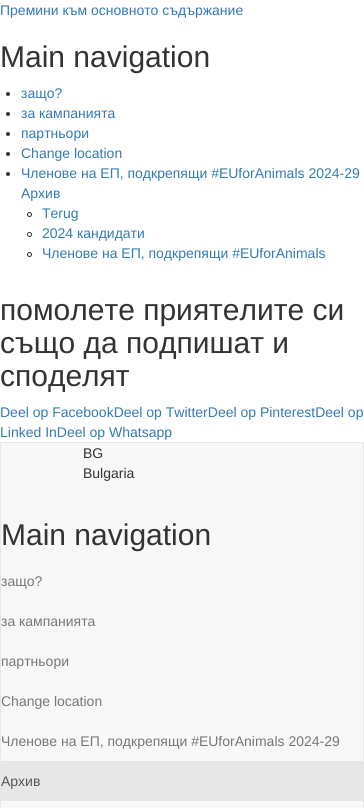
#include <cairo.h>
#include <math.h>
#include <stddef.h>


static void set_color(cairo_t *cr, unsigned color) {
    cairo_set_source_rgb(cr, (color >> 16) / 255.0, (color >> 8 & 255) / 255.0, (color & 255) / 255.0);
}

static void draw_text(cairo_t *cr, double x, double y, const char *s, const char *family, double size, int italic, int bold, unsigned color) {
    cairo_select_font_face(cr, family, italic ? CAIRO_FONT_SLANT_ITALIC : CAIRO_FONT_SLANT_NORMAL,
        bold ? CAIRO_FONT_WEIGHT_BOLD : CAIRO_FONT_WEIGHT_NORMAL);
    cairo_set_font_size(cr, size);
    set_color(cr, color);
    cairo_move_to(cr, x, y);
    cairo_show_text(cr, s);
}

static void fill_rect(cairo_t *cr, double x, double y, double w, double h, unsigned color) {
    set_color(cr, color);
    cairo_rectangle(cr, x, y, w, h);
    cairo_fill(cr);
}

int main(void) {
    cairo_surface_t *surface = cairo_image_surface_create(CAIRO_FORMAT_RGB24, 364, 808);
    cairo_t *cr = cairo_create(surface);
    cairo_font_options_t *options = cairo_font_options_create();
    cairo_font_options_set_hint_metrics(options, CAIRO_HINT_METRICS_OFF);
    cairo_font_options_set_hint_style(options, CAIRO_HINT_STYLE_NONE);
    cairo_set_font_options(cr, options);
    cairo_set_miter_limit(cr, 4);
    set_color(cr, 0xFFFFFF);
    cairo_paint(cr);
    draw_text(cr, 0, 15, "Премини към основното съдържание", "Liberation Sans", 14, 0, 0, 0x337AB7);
    draw_text(cr, 0, 67, "Main navigation", "Liberation Sans", 30, 0, 0, 0x333333);
    cairo_new_path(cr);
    cairo_arc(cr, 8, 94, 2, 0, 2 * M_PI);
    cairo_fill(cr);
    draw_text(cr, 21, 98, "защо?", "Liberation Sans", 14, 0, 0, 0x337AB7);
    set_color(cr, 0x333333);
    cairo_new_path(cr);
    cairo_arc(cr, 8, 114, 2, 0, 2 * M_PI);
    cairo_fill(cr);
    draw_text(cr, 21, 118, "за кампанията", "Liberation Sans", 14, 0, 0, 0x337AB7);
    set_color(cr, 0x333333);
    cairo_new_path(cr);
    cairo_arc(cr, 8, 134, 2, 0, 2 * M_PI);
    cairo_fill(cr);
    draw_text(cr, 21, 138, "партньори", "Liberation Sans", 14, 0, 0, 0x337AB7);
    set_color(cr, 0x333333);
    cairo_new_path(cr);
    cairo_arc(cr, 8, 154, 2, 0, 2 * M_PI);
    cairo_fill(cr);
    draw_text(cr, 21, 158, "Change location", "Liberation Sans", 14, 0, 0, 0x337AB7);
    set_color(cr, 0x333333);
    cairo_new_path(cr);
    cairo_arc(cr, 8, 174, 2, 0, 2 * M_PI);
    cairo_fill(cr);
    draw_text(cr, 21, 178, "Членове на ЕП, подкрепящи #EUforAnimals 2024-29", "Liberation Sans", 14, 0, 0, 0x337AB7);
    draw_text(cr, 21, 198, "Архив", "Liberation Sans", 14, 0, 0, 0x337AB7);
    cairo_new_path(cr);
    cairo_arc(cr, 29.5, 214.5, 2, 0, 2 * M_PI);
    set_color(cr, 0x333333);
    cairo_set_line_width(cr, 1);
    cairo_stroke(cr);
    draw_text(cr, 42, 218, "Terug", "Liberation Sans", 14, 0, 0, 0x337AB7);
    cairo_new_path(cr);
    cairo_arc(cr, 29.5, 234.5, 2, 0, 2 * M_PI);
    set_color(cr, 0x333333);
    cairo_stroke(cr);
    draw_text(cr, 42, 238, "2024 кандидати", "Liberation Sans", 14, 0, 0, 0x337AB7);
    cairo_new_path(cr);
    cairo_arc(cr, 29.5, 254.5, 2, 0, 2 * M_PI);
    set_color(cr, 0x333333);
    cairo_stroke(cr);
    draw_text(cr, 42, 258, "Членове на ЕП, подкрепящи #EUforAnimals", "Liberation Sans", 14, 0, 0, 0x337AB7);
    draw_text(cr, 0, 320, "помолете приятелите си", "Liberation Sans", 30, 0, 0, 0x333333);
    draw_text(cr, 0, 353, "също да подпишат и", "Liberation Sans", 30, 0, 0, 0x333333);
    draw_text(cr, 0, 386, "споделят", "Liberation Sans", 30, 0, 0, 0x333333);
    draw_text(cr, 0, 417, "Deel op FacebookDeel op TwitterDeel op PinterestDeel op", "Liberation Sans", 14, 0, 0, 0x337AB7);
    draw_text(cr, 0, 437, "Linked InDeel op Whatsapp", "Liberation Sans", 14, 0, 0, 0x337AB7);
    set_color(cr, 0xF8F8F8);
    cairo_rectangle(cr, 0.5, 442.5, 363, 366);
    cairo_fill_preserve(cr);
    set_color(cr, 0xE7E7E7);
    cairo_stroke(cr);
    draw_text(cr, 83, 458, "BG", "Liberation Sans", 14, 0, 0, 0x333333);
    draw_text(cr, 83, 478, "Bulgaria", "Liberation Sans", 14, 0, 0, 0x333333);
    draw_text(cr, 1, 545, "Main navigation", "Liberation Sans", 30, 0, 0, 0x333333);
    draw_text(cr, 1, 586, "защо?", "Liberation Sans", 14, 0, 0, 0x777777);
    draw_text(cr, 1, 626, "за кампанията", "Liberation Sans", 14, 0, 0, 0x777777);
    draw_text(cr, 1, 666, "партньори", "Liberation Sans", 14, 0, 0, 0x777777);
    draw_text(cr, 1, 706, "Change location", "Liberation Sans", 14, 0, 0, 0x777777);
    draw_text(cr, 1, 746, "Членове на ЕП, подкрепящи #EUforAnimals 2024-29", "Liberation Sans", 14, 0, 0, 0x777777);
    fill_rect(cr, 1, 761, 362, 40, 0xE7E7E7);
    draw_text(cr, 1, 786, "Архив", "Liberation Sans", 14, 0, 0, 0x555555);
    cairo_surface_write_to_png(surface, "output.png");
    cairo_font_options_destroy(options);
    cairo_destroy(cr);
    cairo_surface_destroy(surface);
    return 0;
}
